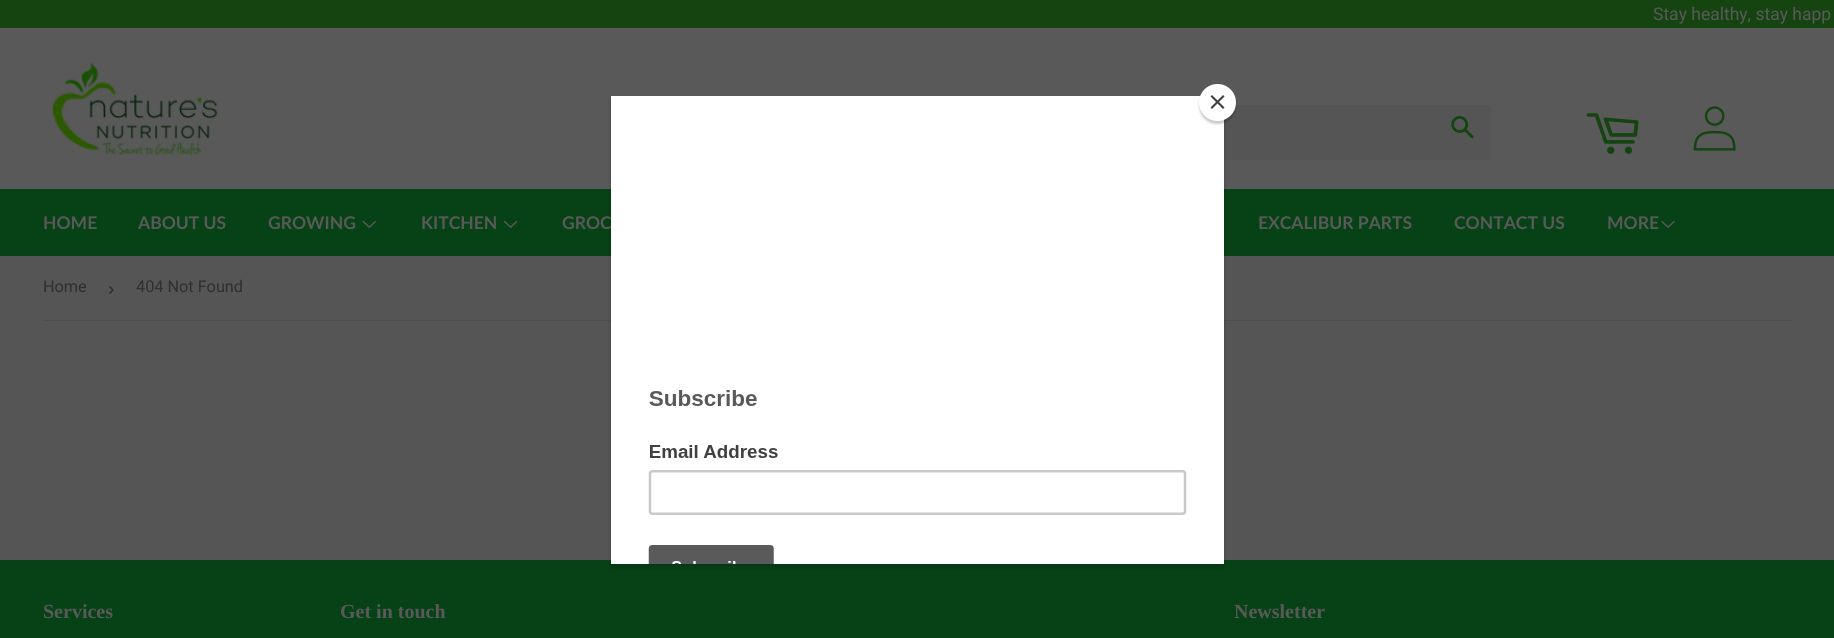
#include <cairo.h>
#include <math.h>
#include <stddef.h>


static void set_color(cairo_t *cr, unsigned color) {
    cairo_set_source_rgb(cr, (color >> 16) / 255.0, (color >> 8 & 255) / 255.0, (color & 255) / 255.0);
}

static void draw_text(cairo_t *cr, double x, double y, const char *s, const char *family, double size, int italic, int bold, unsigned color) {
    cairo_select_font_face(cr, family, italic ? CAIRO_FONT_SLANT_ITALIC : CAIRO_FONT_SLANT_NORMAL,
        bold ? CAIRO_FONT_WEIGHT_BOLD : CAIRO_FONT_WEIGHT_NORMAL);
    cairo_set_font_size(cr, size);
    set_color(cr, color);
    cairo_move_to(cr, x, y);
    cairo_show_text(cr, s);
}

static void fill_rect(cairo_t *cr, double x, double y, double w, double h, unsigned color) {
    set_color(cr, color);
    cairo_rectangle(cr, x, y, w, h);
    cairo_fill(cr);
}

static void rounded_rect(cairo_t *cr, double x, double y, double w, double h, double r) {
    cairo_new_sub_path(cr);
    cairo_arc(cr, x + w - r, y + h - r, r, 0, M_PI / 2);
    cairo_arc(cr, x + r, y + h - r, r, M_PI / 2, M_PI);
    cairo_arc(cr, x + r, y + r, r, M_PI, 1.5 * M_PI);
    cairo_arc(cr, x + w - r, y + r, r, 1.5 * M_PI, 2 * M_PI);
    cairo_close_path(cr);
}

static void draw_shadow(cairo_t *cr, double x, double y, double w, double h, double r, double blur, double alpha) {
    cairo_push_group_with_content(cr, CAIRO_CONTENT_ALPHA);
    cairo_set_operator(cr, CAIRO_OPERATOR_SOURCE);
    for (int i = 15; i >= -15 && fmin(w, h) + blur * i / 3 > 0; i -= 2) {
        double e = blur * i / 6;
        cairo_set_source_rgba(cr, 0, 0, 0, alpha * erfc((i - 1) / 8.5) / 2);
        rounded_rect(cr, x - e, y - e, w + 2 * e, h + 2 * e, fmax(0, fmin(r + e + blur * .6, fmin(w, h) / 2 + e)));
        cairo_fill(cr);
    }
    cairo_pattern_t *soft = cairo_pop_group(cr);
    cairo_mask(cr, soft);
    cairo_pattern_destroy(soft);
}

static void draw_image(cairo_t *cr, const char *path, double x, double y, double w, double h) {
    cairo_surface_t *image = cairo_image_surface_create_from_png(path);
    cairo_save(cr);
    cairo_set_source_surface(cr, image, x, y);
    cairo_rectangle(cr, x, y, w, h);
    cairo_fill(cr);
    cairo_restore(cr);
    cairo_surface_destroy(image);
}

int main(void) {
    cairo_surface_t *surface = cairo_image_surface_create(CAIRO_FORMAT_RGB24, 1834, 638);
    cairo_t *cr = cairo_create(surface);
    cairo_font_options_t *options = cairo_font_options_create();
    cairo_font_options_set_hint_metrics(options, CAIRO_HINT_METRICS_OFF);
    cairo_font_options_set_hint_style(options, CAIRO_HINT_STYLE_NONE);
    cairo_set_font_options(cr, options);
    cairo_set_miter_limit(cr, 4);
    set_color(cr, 0x555555);
    cairo_paint(cr);
    fill_rect(cr, 0, 28, 1834, 161, 0x595959);
    fill_rect(cr, 0, 0, 1834, 28, 0x154411);
    draw_text(cr, 1653, 20, "Stay healthy, stay happ", "Roboto", 17.5, 0, 0, 0x595959);
    draw_image(cr, "assets/img1.png", 51, 62, 167, 100);
    set_color(cr, 0x555555);
    rounded_rect(cr, 966, 105, 525, 55, 2.5);
    cairo_fill(cr);
    draw_image(cr, "assets/img2.png", 1451, 116, 23, 23);
    draw_image(cr, "assets/img3.png", 1586, 113, 53, 41);
    draw_image(cr, "assets/img4.png", 1693, 106, 43, 45);
    fill_rect(cr, 0, 189, 1834, 67, 0x074116);
    draw_text(cr, 43, 229, "HOME", "Lato", 17.5, 0, 1, 0x595959);
    draw_text(cr, 138, 229, "ABOUT US", "Lato", 17.5, 0, 1, 0x595959);
    draw_text(cr, 268, 229, "GROWING", "Lato", 17.5, 0, 1, 0x595959);
    draw_image(cr, "assets/img5.png", 362, 220, 14, 9);
    draw_text(cr, 421, 229, "KITCHEN", "Lato", 17.5, 0, 1, 0x595959);
    draw_image(cr, "assets/img6.png", 503, 220, 15, 9);
    draw_text(cr, 562, 229, "GROC", "Lato", 17.5, 0, 1, 0x595959);
    draw_text(cr, 1258, 229, "EXCALIBUR PARTS", "Lato", 17.5, 0, 1, 0x595959);
    draw_text(cr, 1454, 229, "CONTACT US", "Lato", 17.5, 0, 1, 0x595959);
    draw_text(cr, 1607, 229, "MORE", "Lato", 17.5, 0, 1, 0x595959);
    draw_image(cr, "assets/img7.png", 1661, 220, 14, 9);
    fill_rect(cr, 43, 320, 1750, 1, 0x4E4E4E);
    draw_text(cr, 43, 292, "Home", "Roboto", 16.25, 0, 0, 0x2F2F2F);
    draw_text(cr, 108, 295, "›", "Liberation Sans", 19, 0, 0, 0x292929);
    draw_text(cr, 136, 292, "404 Not Found", "Roboto", 16.25, 0, 0, 0x2F2F2F);
    fill_rect(cr, 0, 560, 1834, 78, 0x074116);
    set_color(cr, 0x000000);
    draw_shadow(cr, 611, 99, 613, 467, 0, 2.5, 0.2);
    draw_image(cr, "assets/img8.png", 611, 96, 613, 468);
    draw_shadow(cr, 1199, 86, 37, 38, 18.5, 1, 0.2);
    set_color(cr, 0xFFFFFF);
    cairo_arc(cr, 1217.5, 102.5, 18.5, 0, 2 * M_PI);
    cairo_fill(cr);
    set_color(cr, 0x414141);
    cairo_new_path(cr);
    cairo_move_to(cr, 1223, 95);
    cairo_line_to(cr, 1224.5, 96.5);
    cairo_line_to(cr, 1212, 109);
    cairo_line_to(cr, 1210.5, 107.5);
    cairo_close_path(cr);
    cairo_fill(cr);
    cairo_new_path(cr);
    cairo_move_to(cr, 1210.5, 96.5);
    cairo_line_to(cr, 1212, 95);
    cairo_line_to(cr, 1224.5, 107.5);
    cairo_line_to(cr, 1223, 109);
    cairo_close_path(cr);
    cairo_fill(cr);
    draw_text(cr, 43, 618, "Services", "Liberation Serif", 20, 0, 1, 0x595959);
    draw_text(cr, 340, 618, "Get in touch", "Liberation Serif", 20, 0, 1, 0x595959);
    draw_text(cr, 1234, 618, "Newsletter", "Liberation Serif", 20, 0, 1, 0x595959);
    cairo_surface_write_to_png(surface, "output.png");
    cairo_font_options_destroy(options);
    cairo_destroy(cr);
    cairo_surface_destroy(surface);
    return 0;
}
